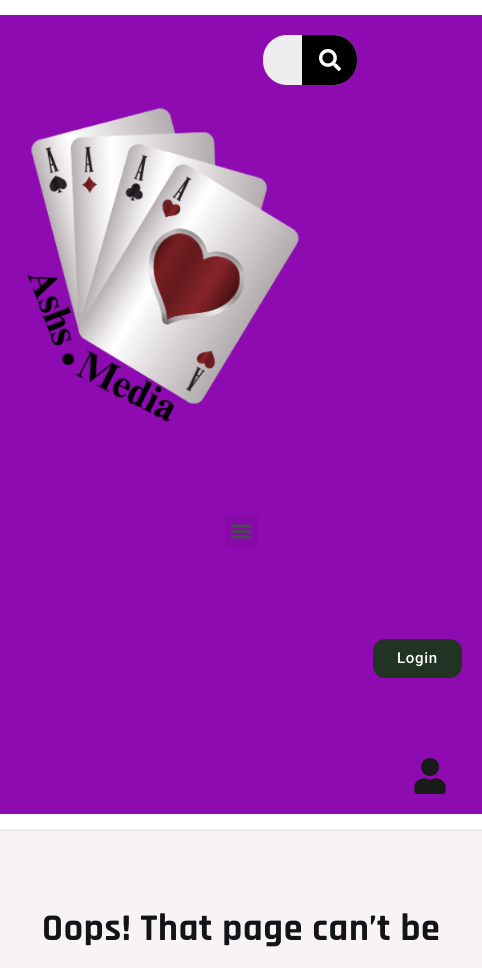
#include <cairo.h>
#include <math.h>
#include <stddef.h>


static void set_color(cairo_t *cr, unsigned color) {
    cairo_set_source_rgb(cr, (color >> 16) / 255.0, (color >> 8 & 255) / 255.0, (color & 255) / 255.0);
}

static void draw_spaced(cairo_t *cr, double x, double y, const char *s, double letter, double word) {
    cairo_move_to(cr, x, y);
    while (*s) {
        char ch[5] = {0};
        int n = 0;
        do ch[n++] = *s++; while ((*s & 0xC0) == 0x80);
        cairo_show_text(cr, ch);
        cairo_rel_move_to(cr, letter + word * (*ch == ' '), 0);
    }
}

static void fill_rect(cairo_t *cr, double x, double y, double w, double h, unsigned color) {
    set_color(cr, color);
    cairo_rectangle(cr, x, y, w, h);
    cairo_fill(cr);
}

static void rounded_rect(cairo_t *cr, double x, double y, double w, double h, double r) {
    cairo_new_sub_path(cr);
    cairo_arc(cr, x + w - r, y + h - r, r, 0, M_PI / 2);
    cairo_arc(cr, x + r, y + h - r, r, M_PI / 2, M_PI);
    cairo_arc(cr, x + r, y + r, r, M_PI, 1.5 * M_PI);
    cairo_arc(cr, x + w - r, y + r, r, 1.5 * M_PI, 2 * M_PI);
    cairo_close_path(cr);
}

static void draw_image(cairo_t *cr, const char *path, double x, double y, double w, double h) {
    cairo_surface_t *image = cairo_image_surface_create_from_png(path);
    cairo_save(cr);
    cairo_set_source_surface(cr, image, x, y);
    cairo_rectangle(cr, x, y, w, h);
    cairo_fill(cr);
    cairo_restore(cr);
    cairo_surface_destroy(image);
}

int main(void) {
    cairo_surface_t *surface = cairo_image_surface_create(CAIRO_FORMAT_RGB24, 482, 968);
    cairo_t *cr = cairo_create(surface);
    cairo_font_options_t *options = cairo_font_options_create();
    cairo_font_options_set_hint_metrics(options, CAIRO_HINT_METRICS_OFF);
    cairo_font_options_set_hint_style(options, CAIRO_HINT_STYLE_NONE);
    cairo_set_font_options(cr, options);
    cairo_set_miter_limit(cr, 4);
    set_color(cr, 0xF8F3F4);
    cairo_paint(cr);
    fill_rect(cr, 0, 0, 482, 829, 0xFFFFFF);
    fill_rect(cr, 0, 829, 482, 2, 0xE9E9E9);
    fill_rect(cr, 0, 15, 482, 799, 0x8E0BB1);
    set_color(cr, 0xECEEEF);
    rounded_rect(cr, 263, 35, 94, 50, 24);
    cairo_fill(cr);
    set_color(cr, 0x000000);
    cairo_new_path(cr);
    cairo_move_to(cr, 302, 35);
    cairo_line_to(cr, 333, 35);
    cairo_curve_to(cr, 346.5, 35, 357, 45.5, 357, 59);
    cairo_line_to(cr, 357, 61);
    cairo_curve_to(cr, 357, 74.5, 346.5, 85, 333, 85);
    cairo_line_to(cr, 302, 85);
    cairo_close_path(cr);
    cairo_fill(cr);
    draw_image(cr, "assets/img1.png", 319, 49, 22, 22);
    draw_image(cr, "assets/img2.png", 27, 107, 272, 315);
    set_color(cr, 0x870AA8);
    rounded_rect(cr, 225, 514, 33, 33, 3);
    cairo_fill(cr);
    draw_image(cr, "assets/img3.png", 231, 524, 20, 15);
    set_color(cr, 0x223324);
    rounded_rect(cr, 373, 639, 89, 39, 12);
    cairo_fill(cr);
    cairo_select_font_face(cr, "Roboto Medium", CAIRO_FONT_SLANT_NORMAL, CAIRO_FONT_WEIGHT_NORMAL);
    cairo_set_font_size(cr, 15);
    set_color(cr, 0xFFFFFF);
    draw_spaced(cr, 397, 663, "Login", 0.7, 0);
    draw_image(cr, "assets/img4.png", 414, 758, 32, 36);
    cairo_select_font_face(cr, "Rajdhani", CAIRO_FONT_SLANT_NORMAL, CAIRO_FONT_WEIGHT_BOLD);
    cairo_set_font_size(cr, 38);
    set_color(cr, 0x121418);
    draw_spaced(cr, 42, 940, "Oops! That page can’t be", 0.7, 0);
    cairo_surface_write_to_png(surface, "output.png");
    cairo_font_options_destroy(options);
    cairo_destroy(cr);
    cairo_surface_destroy(surface);
    return 0;
}
